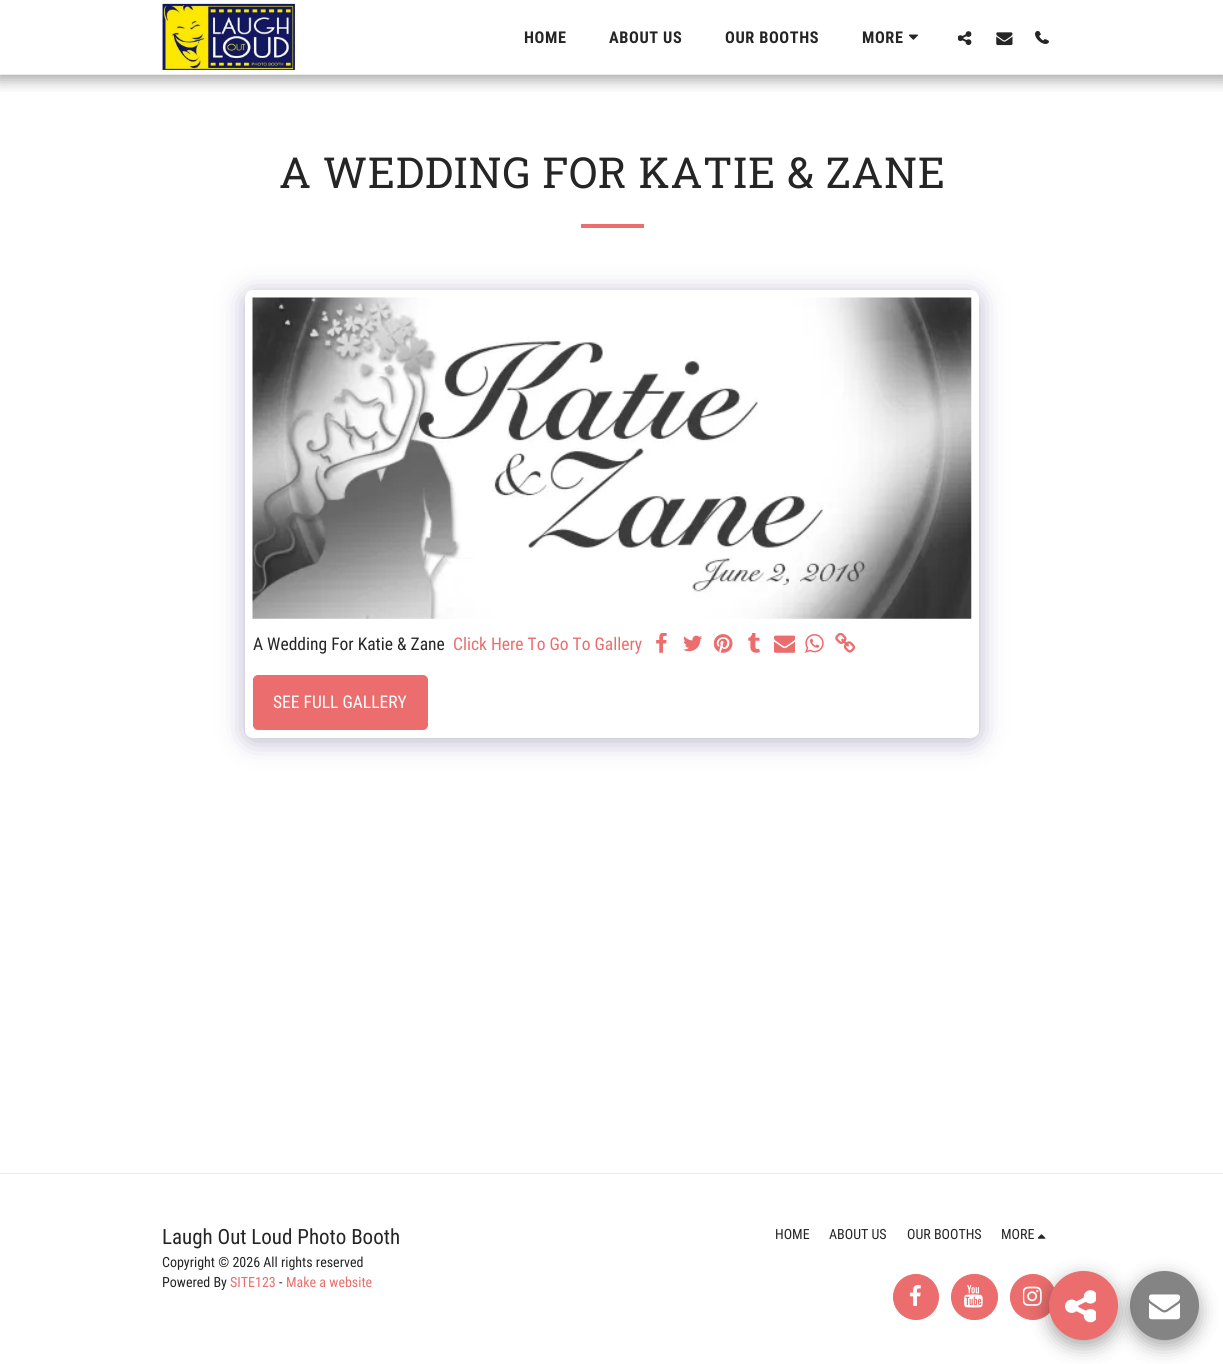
#include <cairo.h>
#include <math.h>
#include <stddef.h>


static void set_color(cairo_t *cr, unsigned color) {
    cairo_set_source_rgb(cr, (color >> 16) / 255.0, (color >> 8 & 255) / 255.0, (color & 255) / 255.0);
}

static void draw_text(cairo_t *cr, double x, double y, const char *s, const char *family, double size, int italic, int bold, unsigned color) {
    cairo_select_font_face(cr, family, italic ? CAIRO_FONT_SLANT_ITALIC : CAIRO_FONT_SLANT_NORMAL,
        bold ? CAIRO_FONT_WEIGHT_BOLD : CAIRO_FONT_WEIGHT_NORMAL);
    cairo_set_font_size(cr, size);
    set_color(cr, color);
    cairo_move_to(cr, x, y);
    cairo_show_text(cr, s);
}

static void draw_spaced(cairo_t *cr, double x, double y, const char *s, double letter, double word) {
    cairo_move_to(cr, x, y);
    while (*s) {
        char ch[5] = {0};
        int n = 0;
        do ch[n++] = *s++; while ((*s & 0xC0) == 0x80);
        cairo_show_text(cr, ch);
        cairo_rel_move_to(cr, letter + word * (*ch == ' '), 0);
    }
}

static void fill_rect(cairo_t *cr, double x, double y, double w, double h, unsigned color) {
    set_color(cr, color);
    cairo_rectangle(cr, x, y, w, h);
    cairo_fill(cr);
}

static void rounded_rect(cairo_t *cr, double x, double y, double w, double h, double r) {
    cairo_new_sub_path(cr);
    cairo_arc(cr, x + w - r, y + h - r, r, 0, M_PI / 2);
    cairo_arc(cr, x + r, y + h - r, r, M_PI / 2, M_PI);
    cairo_arc(cr, x + r, y + r, r, M_PI, 1.5 * M_PI);
    cairo_arc(cr, x + w - r, y + r, r, 1.5 * M_PI, 2 * M_PI);
    cairo_close_path(cr);
}

static void draw_shadow(cairo_t *cr, double x, double y, double w, double h, double r, double blur, double alpha) {
    cairo_push_group_with_content(cr, CAIRO_CONTENT_ALPHA);
    cairo_set_operator(cr, CAIRO_OPERATOR_SOURCE);
    for (int i = 15; i >= -15 && fmin(w, h) + blur * i / 3 > 0; i -= 2) {
        double e = blur * i / 6;
        cairo_set_source_rgba(cr, 0, 0, 0, alpha * erfc((i - 1) / 8.5) / 2);
        rounded_rect(cr, x - e, y - e, w + 2 * e, h + 2 * e, fmax(0, fmin(r + e + blur * .6, fmin(w, h) / 2 + e)));
        cairo_fill(cr);
    }
    cairo_pattern_t *soft = cairo_pop_group(cr);
    cairo_mask(cr, soft);
    cairo_pattern_destroy(soft);
}

static void draw_image(cairo_t *cr, const char *path, double x, double y, double w, double h) {
    cairo_surface_t *image = cairo_image_surface_create_from_png(path);
    cairo_save(cr);
    cairo_set_source_surface(cr, image, x, y);
    cairo_rectangle(cr, x, y, w, h);
    cairo_fill(cr);
    cairo_restore(cr);
    cairo_surface_destroy(image);
}

int main(void) {
    cairo_surface_t *surface = cairo_image_surface_create(CAIRO_FORMAT_RGB24, 1223, 1364);
    cairo_t *cr = cairo_create(surface);
    cairo_font_options_t *options = cairo_font_options_create();
    cairo_font_options_set_hint_metrics(options, CAIRO_HINT_METRICS_OFF);
    cairo_font_options_set_hint_style(options, CAIRO_HINT_STYLE_NONE);
    cairo_set_font_options(cr, options);
    cairo_set_miter_limit(cr, 4);
    set_color(cr, 0xFFFFFF);
    cairo_paint(cr);
    cairo_save(cr);
    cairo_rectangle(cr, 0, 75, 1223, 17);
    cairo_clip(cr);
    set_color(cr, 0x000000);
    draw_shadow(cr, -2, 0, 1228, 80, 0, 7.5, 0.35);
    cairo_restore(cr);
    fill_rect(cr, 0, 74, 1223, 1, 0xEBEBEB);
    draw_image(cr, "assets/img1.png", 162, 3, 133, 67);
    cairo_select_font_face(cr, "Roboto Condensed", CAIRO_FONT_SLANT_NORMAL, CAIRO_FONT_WEIGHT_BOLD);
    cairo_set_font_size(cr, 16.25);
    set_color(cr, 0x252525);
    draw_spaced(cr, 524, 43, "HOME", 0.6, 0);
    draw_spaced(cr, 609, 43, "ABOUT US", 0.6, 0);
    draw_spaced(cr, 725, 43, "OUR BOOTHS", 0.6, 0);
    draw_spaced(cr, 862, 43, "MORE", 0.6, 0);
    draw_image(cr, "assets/img2.png", 909, 34, 9, 6);
    draw_image(cr, "assets/img3.png", 958, 31, 14, 15);
    draw_image(cr, "assets/img4.png", 996, 32, 17, 14);
    draw_image(cr, "assets/img5.png", 1037, 31, 12, 13);
    draw_image(cr, "assets/img6.png", 1035, 31, 13, 13);
    cairo_select_font_face(cr, "Roboto Slab", CAIRO_FONT_SLANT_NORMAL, CAIRO_FONT_WEIGHT_NORMAL);
    cairo_set_font_size(cr, 42.75);
    draw_spaced(cr, 279, 188, "A WEDDING FOR KATIE & ZANE", 0.6, 0);
    fill_rect(cr, 581, 224, 63, 4, 0xEB6D6D);
    set_color(cr, 0x4D3F7A);
    draw_shadow(cr, 245, 294, 734, 447, 8, 12.5, 0.4);
    set_color(cr, 0xFFFFFF);
    rounded_rect(cr, 245, 290, 734, 448, 8);
    cairo_fill(cr);
    draw_image(cr, "assets/img7.png", 252, 297, 720, 322);
    draw_text(cr, 253, 650, "A Wedding For Katie & Zane", "Roboto Condensed", 17.5, 0, 0, 0x252525);
    draw_text(cr, 453, 650, "Click Here To Go To Gallery", "Roboto Condensed", 17.5, 0, 0, 0xEB6D6D);
    draw_image(cr, "assets/img8.png", 656, 633, 11, 20);
    draw_image(cr, "assets/img9.png", 683, 635, 20, 17);
    draw_image(cr, "assets/img10.png", 714, 634, 19, 19);
    draw_image(cr, "assets/img11.png", 748, 633, 12, 20);
    draw_image(cr, "assets/img12.png", 774, 635, 21, 18);
    draw_image(cr, "assets/img13.png", 805, 634, 19, 19);
    draw_image(cr, "assets/img14.png", 835, 633, 21, 20);
    rounded_rect(cr, 253.5, 675.5, 174, 54, 4.5);
    cairo_fill_preserve(cr);
    cairo_set_line_width(cr, 1);
    cairo_stroke(cr);
    draw_text(cr, 273, 708, "SEE FULL GALLERY", "Roboto Condensed", 17.5, 0, 0, 0xFFFFFF);
    fill_rect(cr, 0, 1173, 1223, 1, 0xEBEBEB);
    draw_text(cr, 162, 1244, "Laugh Out Loud Photo Booth", "Roboto Condensed", 21, 0, 0, 0x252525);
    draw_text(cr, 162, 1267, "Copyright © 2026 All rights reserved", "Roboto Condensed", 14, 0, 0, 0x252525);
    draw_text(cr, 162, 1287, "Powered By", "Roboto Condensed", 14, 0, 0, 0x252525);
    draw_text(cr, 230, 1287, "SITE123", "Roboto Condensed", 14, 0, 0, 0xEB6D6D);
    draw_text(cr, 279, 1287, "-", "Roboto Condensed", 14, 0, 0, 0x252525);
    draw_text(cr, 286, 1287, "Make a website", "Roboto Condensed", 14, 0, 0, 0xEB6D6D);
    draw_text(cr, 775, 1239, "HOME", "Roboto Condensed", 14, 0, 0, 0x252525);
    draw_text(cr, 829, 1239, "ABOUT US", "Roboto Condensed", 14, 0, 0, 0x252525);
    draw_text(cr, 907, 1239, "OUR BOOTHS", "Roboto Condensed", 14, 0, 0, 0x252525);
    draw_text(cr, 1001, 1239, "MORE", "Roboto Condensed", 14, 0, 0, 0x252525);
    draw_image(cr, "assets/img15.png", 1038, 1234, 8, 5);
    set_color(cr, 0xEB6D6D);
    cairo_arc(cr, 916, 1297, 22.5, 0, 2 * M_PI);
    cairo_fill_preserve(cr);
    cairo_stroke(cr);
    draw_image(cr, "assets/img16.png", 909, 1285, 12, 21);
    rounded_rect(cr, 951.5, 1274.5, 46, 45, 22.5);
    cairo_fill_preserve(cr);
    cairo_stroke(cr);
    draw_image(cr, "assets/img17.png", 964, 1285, 19, 23);
    cairo_arc(cr, 1033, 1297, 22.5, 0, 2 * M_PI);
    cairo_fill_preserve(cr);
    cairo_stroke(cr);
    draw_image(cr, "assets/img18.png", 1023, 1286, 19, 20);
    set_color(cr, 0x000000);
    draw_shadow(cr, 1130, 1278, 69, 68, 34, 9.5, 0.35);
    set_color(cr, 0x848484);
    cairo_arc(cr, 1164.5, 1305.5, 34.5, 0, 2 * M_PI);
    cairo_fill(cr);
    set_color(cr, 0x000000);
    draw_shadow(cr, 1049, 1278, 69, 68, 34, 9.5, 0.35);
    set_color(cr, 0xEB6D6D);
    cairo_arc(cr, 1083.5, 1305.5, 34, 0, 2 * M_PI);
    cairo_fill_preserve(cr);
    cairo_stroke(cr);
    draw_image(cr, "assets/img19.png", 1065, 1290, 31, 33);
    draw_image(cr, "assets/img20.png", 1149, 1294, 31, 26);
    cairo_surface_write_to_png(surface, "output.png");
    cairo_font_options_destroy(options);
    cairo_destroy(cr);
    cairo_surface_destroy(surface);
    return 0;
}
